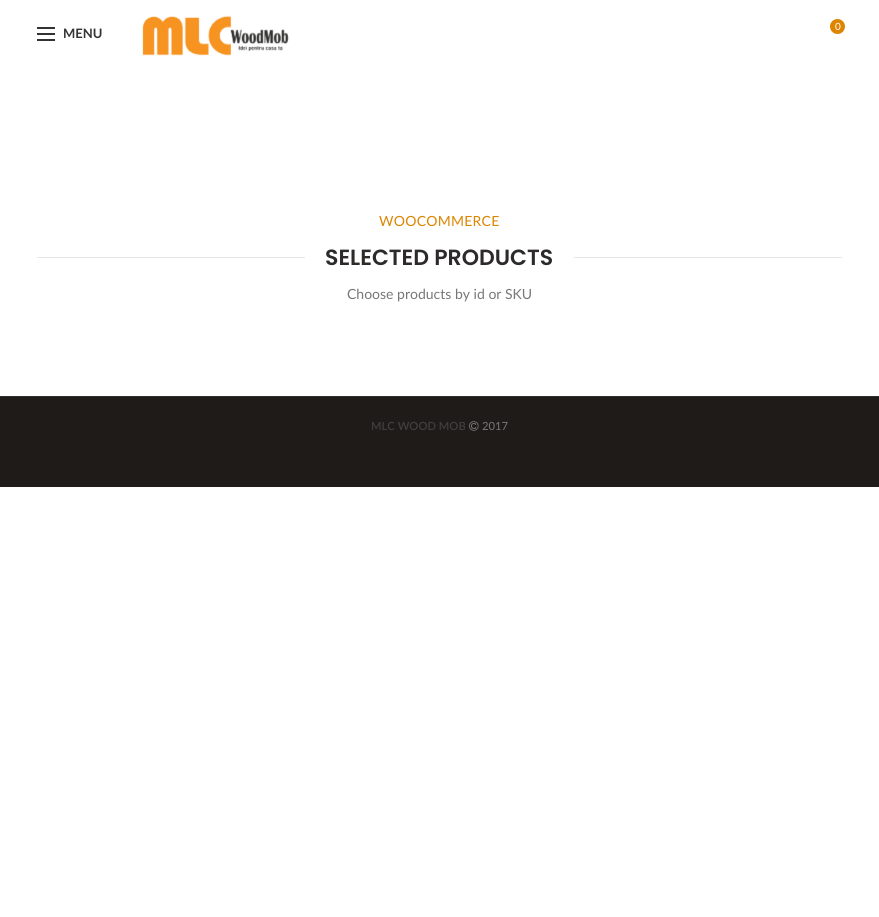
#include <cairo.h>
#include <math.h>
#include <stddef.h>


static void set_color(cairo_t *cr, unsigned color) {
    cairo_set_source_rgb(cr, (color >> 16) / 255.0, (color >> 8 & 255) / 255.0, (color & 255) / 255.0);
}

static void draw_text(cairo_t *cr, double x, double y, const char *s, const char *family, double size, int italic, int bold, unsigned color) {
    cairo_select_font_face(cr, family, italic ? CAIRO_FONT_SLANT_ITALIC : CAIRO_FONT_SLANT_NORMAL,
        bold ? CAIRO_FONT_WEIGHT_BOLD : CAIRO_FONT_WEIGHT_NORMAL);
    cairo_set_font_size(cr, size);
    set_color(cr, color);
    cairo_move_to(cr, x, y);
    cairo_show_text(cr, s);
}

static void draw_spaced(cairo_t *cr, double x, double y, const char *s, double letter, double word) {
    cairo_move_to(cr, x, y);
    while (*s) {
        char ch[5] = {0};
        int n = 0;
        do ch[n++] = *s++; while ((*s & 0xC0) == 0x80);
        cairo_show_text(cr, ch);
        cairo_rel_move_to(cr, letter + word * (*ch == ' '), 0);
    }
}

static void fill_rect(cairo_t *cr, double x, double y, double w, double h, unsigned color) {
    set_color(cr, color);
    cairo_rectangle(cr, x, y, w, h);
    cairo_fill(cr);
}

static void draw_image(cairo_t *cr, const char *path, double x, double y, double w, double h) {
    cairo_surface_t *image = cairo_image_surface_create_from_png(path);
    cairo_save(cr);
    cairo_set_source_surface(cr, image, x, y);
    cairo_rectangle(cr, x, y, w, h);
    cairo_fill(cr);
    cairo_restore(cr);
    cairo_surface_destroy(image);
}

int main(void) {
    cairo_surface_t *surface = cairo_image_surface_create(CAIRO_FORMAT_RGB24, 879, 917);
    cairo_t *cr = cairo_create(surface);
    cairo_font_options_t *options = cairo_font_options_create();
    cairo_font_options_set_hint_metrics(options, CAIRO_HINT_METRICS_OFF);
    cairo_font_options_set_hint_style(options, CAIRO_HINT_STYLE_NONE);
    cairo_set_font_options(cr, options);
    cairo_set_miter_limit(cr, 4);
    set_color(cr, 0xFFFFFF);
    cairo_paint(cr);
    draw_image(cr, "assets/img1.png", 142, 15, 147, 41);
    set_color(cr, 0xDD8500);
    cairo_arc(cr, 837.5, 26.5, 7.5, 0, 2 * M_PI);
    cairo_fill(cr);
    draw_text(cr, 835, 30, "0", "Lato", 10, 0, 0, 0xFFFFFF);
    fill_rect(cr, 37, 33, 18, 2, 0x333333);
    fill_rect(cr, 37, 27, 18, 2, 0x333333);
    fill_rect(cr, 37, 39, 18, 2, 0x333333);
    draw_text(cr, 63, 38, "MENU", "Lato", 13, 0, 1, 0x333333);
    cairo_select_font_face(cr, "Lato", CAIRO_FONT_SLANT_NORMAL, CAIRO_FONT_WEIGHT_NORMAL);
    cairo_set_font_size(cr, 14);
    set_color(cr, 0xDD8500);
    draw_spaced(cr, 379, 226, "WOOCOMMERCE", 0.25, 0);
    fill_rect(cr, 37, 257, 268, 1, 0xE6E6E6);
    draw_text(cr, 325, 265, "SELECTED PRODUCTS", "Poppins SemiBold", 22, 0, 0, 0x2D2A2A);
    fill_rect(cr, 574, 257, 268, 1, 0xE6E6E6);
    draw_text(cr, 347, 299, "Choose products by id or SKU", "Lato", 14, 0, 0, 0x777777);
    fill_rect(cr, 0, 397, 879, 90, 0x1E1B19);
    fill_rect(cr, 0, 396, 879, 1, 0x322F2E);
    draw_text(cr, 371, 430, "MLC WOOD MOB", "Lato SemiBold", 11.25, 0, 0, 0x3F3F3F);
    draw_image(cr, "assets/img2.png", 469, 421, 10, 10);
    draw_text(cr, 482, 430, "2017", "Lato", 11.25, 0, 0, 0x777777);
    cairo_surface_write_to_png(surface, "output.png");
    cairo_font_options_destroy(options);
    cairo_destroy(cr);
    cairo_surface_destroy(surface);
    return 0;
}
